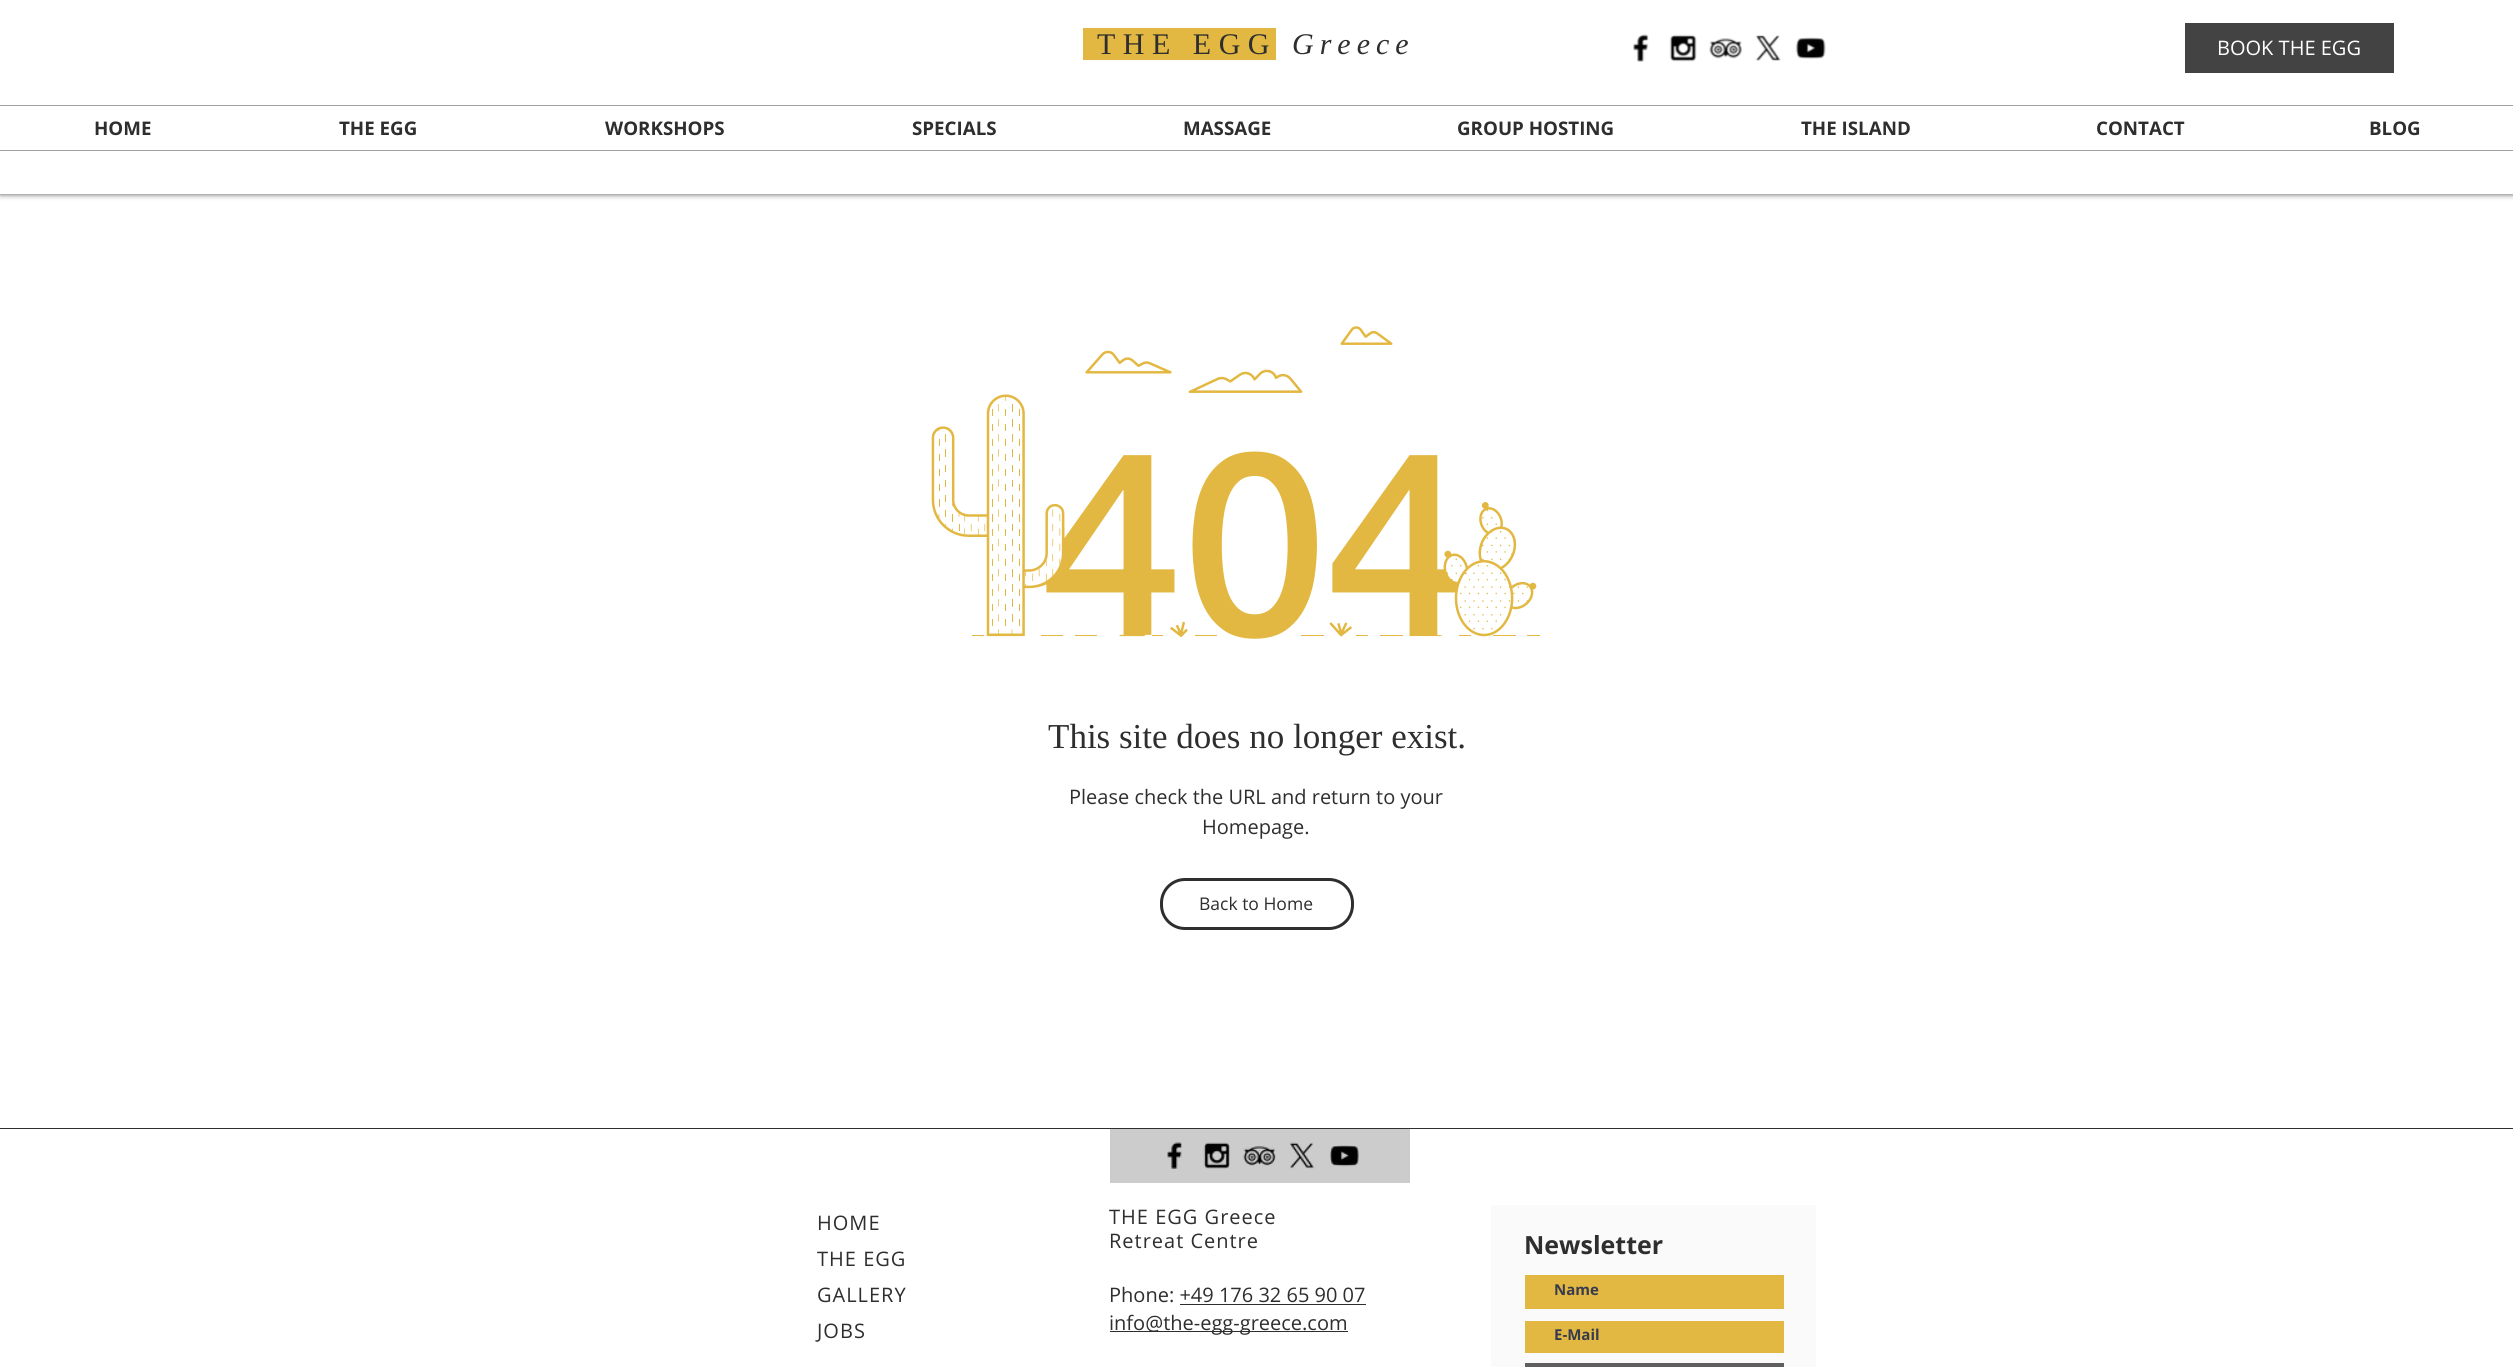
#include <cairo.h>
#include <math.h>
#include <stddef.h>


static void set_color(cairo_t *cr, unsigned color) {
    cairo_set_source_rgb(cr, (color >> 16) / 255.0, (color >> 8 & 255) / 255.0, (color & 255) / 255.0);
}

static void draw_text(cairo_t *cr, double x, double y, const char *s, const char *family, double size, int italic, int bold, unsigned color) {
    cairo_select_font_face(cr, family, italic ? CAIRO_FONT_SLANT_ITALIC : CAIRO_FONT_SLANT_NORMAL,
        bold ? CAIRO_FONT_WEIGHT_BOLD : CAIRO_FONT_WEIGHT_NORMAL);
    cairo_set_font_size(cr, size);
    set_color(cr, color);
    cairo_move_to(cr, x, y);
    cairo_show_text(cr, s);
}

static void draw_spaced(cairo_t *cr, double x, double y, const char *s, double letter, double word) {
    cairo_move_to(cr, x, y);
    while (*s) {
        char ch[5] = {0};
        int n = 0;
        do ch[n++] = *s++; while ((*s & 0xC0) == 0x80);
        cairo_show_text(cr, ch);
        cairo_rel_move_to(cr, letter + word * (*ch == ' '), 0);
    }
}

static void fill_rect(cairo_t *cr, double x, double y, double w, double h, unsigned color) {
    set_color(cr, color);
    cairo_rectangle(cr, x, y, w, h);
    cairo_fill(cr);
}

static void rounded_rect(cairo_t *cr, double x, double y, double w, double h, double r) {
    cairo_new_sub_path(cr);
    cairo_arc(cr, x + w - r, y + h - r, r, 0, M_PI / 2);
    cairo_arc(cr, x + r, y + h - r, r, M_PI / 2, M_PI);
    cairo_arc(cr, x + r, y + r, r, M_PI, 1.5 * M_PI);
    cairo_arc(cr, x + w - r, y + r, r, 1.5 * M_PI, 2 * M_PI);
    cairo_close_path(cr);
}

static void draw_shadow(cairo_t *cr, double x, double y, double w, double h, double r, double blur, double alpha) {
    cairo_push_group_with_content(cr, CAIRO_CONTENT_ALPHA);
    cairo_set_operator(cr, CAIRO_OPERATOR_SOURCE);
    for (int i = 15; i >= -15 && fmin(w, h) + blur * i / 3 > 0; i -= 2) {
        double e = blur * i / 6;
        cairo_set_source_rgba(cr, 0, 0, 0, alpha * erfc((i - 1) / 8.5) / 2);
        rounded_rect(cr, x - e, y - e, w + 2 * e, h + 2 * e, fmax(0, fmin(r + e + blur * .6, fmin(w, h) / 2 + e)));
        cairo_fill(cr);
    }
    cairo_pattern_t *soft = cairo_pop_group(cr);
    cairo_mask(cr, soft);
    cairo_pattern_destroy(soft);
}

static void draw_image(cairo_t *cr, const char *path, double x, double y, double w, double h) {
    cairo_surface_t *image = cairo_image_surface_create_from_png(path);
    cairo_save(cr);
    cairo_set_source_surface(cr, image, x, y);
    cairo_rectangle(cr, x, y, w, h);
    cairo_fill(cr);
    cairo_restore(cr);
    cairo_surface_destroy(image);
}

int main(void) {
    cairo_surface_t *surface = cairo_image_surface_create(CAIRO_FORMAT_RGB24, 2513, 1367);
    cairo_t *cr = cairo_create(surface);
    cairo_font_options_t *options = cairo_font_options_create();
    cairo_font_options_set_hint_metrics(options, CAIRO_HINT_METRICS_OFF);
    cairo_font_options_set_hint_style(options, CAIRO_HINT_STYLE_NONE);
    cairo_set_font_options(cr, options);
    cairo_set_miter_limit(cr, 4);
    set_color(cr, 0xFFFFFF);
    cairo_paint(cr);
    set_color(cr, 0x000000);
    draw_shadow(cr, 0, 0, 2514, 194, 0, 3, 0.7);
    fill_rect(cr, 0, 0, 2513, 194, 0xFFFFFF);
    fill_rect(cr, 1083, 28, 193, 32, 0xE2B842);
    cairo_select_font_face(cr, "Liberation Serif", CAIRO_FONT_SLANT_NORMAL, CAIRO_FONT_WEIGHT_NORMAL);
    cairo_set_font_size(cr, 30);
    set_color(cr, 0x2F2E2E);
    draw_spaced(cr, 1097, 54, "THE EGG", 7.5, 0);
    cairo_select_font_face(cr, "Liberation Serif", CAIRO_FONT_SLANT_ITALIC, CAIRO_FONT_WEIGHT_NORMAL);
    draw_spaced(cr, 1292, 54, "Greece", 6, 0);
    draw_image(cr, "assets/img1.png", 1633, 34, 16, 28);
    draw_image(cr, "assets/img2.png", 1669, 34, 28, 28);
    draw_image(cr, "assets/img3.png", 1709, 38, 33, 21);
    draw_image(cr, "assets/img4.png", 1755, 35, 26, 26);
    draw_image(cr, "assets/img5.png", 1795, 37, 31, 22);
    fill_rect(cr, 2185, 23, 209, 50, 0x444343);
    draw_text(cr, 2217, 55, "BOOK THE EGG", "Open Sans", 20, 0, 0, 0xFFFFFF);
    fill_rect(cr, 0, 105, 2513, 1, 0xA0A09F);
    fill_rect(cr, 0, 150, 2513, 1, 0xA0A09F);
    draw_text(cr, 94, 135, "HOME", "Open Sans", 18.75, 0, 1, 0x2F2E2E);
    draw_text(cr, 339, 135, "THE EGG", "Open Sans", 18.75, 0, 1, 0x2F2E2E);
    draw_text(cr, 605, 135, "WORKSHOPS", "Open Sans", 18.75, 0, 1, 0x2F2E2E);
    draw_text(cr, 912, 135, "SPECIALS", "Open Sans", 18.75, 0, 1, 0x2F2E2E);
    draw_text(cr, 1183, 135, "MASSAGE", "Open Sans", 18.75, 0, 1, 0x2F2E2E);
    draw_text(cr, 1457, 135, "GROUP HOSTING", "Open Sans", 18.75, 0, 1, 0x2F2E2E);
    draw_text(cr, 1801, 135, "THE ISLAND", "Open Sans", 18.75, 0, 1, 0x2F2E2E);
    draw_text(cr, 2096, 135, "CONTACT", "Open Sans", 18.75, 0, 1, 0x2F2E2E);
    draw_text(cr, 2369, 135, "BLOG", "Open Sans", 18.75, 0, 1, 0x2F2E2E);
    draw_image(cr, "assets/img6.png", 931, 326, 609, 313);
    draw_text(cr, 1048, 748, "This site does no longer exist.", "Liberation Serif", 35, 0, 0, 0x2F2E2E);
    draw_text(cr, 1069, 804, "Please check the URL and return to your", "Open Sans", 20, 0, 0, 0x2F2E2E);
    draw_text(cr, 1202, 834, "Homepage.", "Open Sans", 20, 0, 0, 0x2F2E2E);
    rounded_rect(cr, 1161.5, 879.5, 191, 49, 23.5);
    cairo_set_line_width(cr, 3);
    cairo_stroke(cr);
    draw_text(cr, 1199, 910, "Back to Home", "Open Sans", 17.5, 0, 0, 0x2F2E2E);
    fill_rect(cr, 0, 1128, 2513, 1, 0x2F2E2E);
    fill_rect(cr, 1110, 1129, 300, 54, 0xCCCCCC);
    draw_image(cr, "assets/img7.png", 1167, 1142, 15, 27);
    draw_image(cr, "assets/img8.png", 1203, 1142, 27, 27);
    draw_image(cr, "assets/img9.png", 1243, 1146, 33, 20);
    draw_image(cr, "assets/img10.png", 1290, 1142, 24, 27);
    draw_image(cr, "assets/img11.png", 1330, 1145, 29, 22);
    cairo_set_font_size(cr, 20);
    set_color(cr, 0x2F2E2E);
    draw_spaced(cr, 817, 1230, "HOME", 1, 0);
    draw_spaced(cr, 817, 1266, "THE EGG", 1, 0);
    draw_spaced(cr, 817, 1302, "GALLERY", 1, 0);
    draw_spaced(cr, 817, 1338, "JOBS", 1, 0);
    draw_spaced(cr, 1109, 1224, "THE EGG Greece", 1, 0);
    draw_spaced(cr, 1109, 1248, "Retreat Centre", 1, 0);
    draw_text(cr, 1109, 1302, "Phone: +49 176 32 65 90 07", "Open Sans", 20, 0, 0, 0x2F2E2E);
    fill_rect(cr, 1180, 1304, 186, 1, 0x2F2E2E);
    fill_rect(cr, 1110, 1331, 238, 1, 0x2F2E2E);
    draw_text(cr, 1109, 1330, "info@the-egg-greece.com", "Open Sans", 20, 0, 0, 0x2F2E2E);
    fill_rect(cr, 1491, 1205, 325, 162, 0xFAFAFA);
    draw_text(cr, 1524, 1254, "Newsletter", "Open Sans", 25, 0, 1, 0x2F2E2E);
    fill_rect(cr, 1525, 1275, 259, 34, 0xE2B842);
    draw_text(cr, 1554, 1295, "Name", "Open Sans", 15, 0, 1, 0x373B4D);
    fill_rect(cr, 1525, 1321, 259, 32, 0xE2B842);
    draw_text(cr, 1554, 1340, "E-Mail", "Open Sans", 15, 0, 1, 0x373B4D);
    fill_rect(cr, 1525, 1363, 259, 4, 0x605E5E);
    cairo_surface_write_to_png(surface, "output.png");
    cairo_font_options_destroy(options);
    cairo_destroy(cr);
    cairo_surface_destroy(surface);
    return 0;
}
